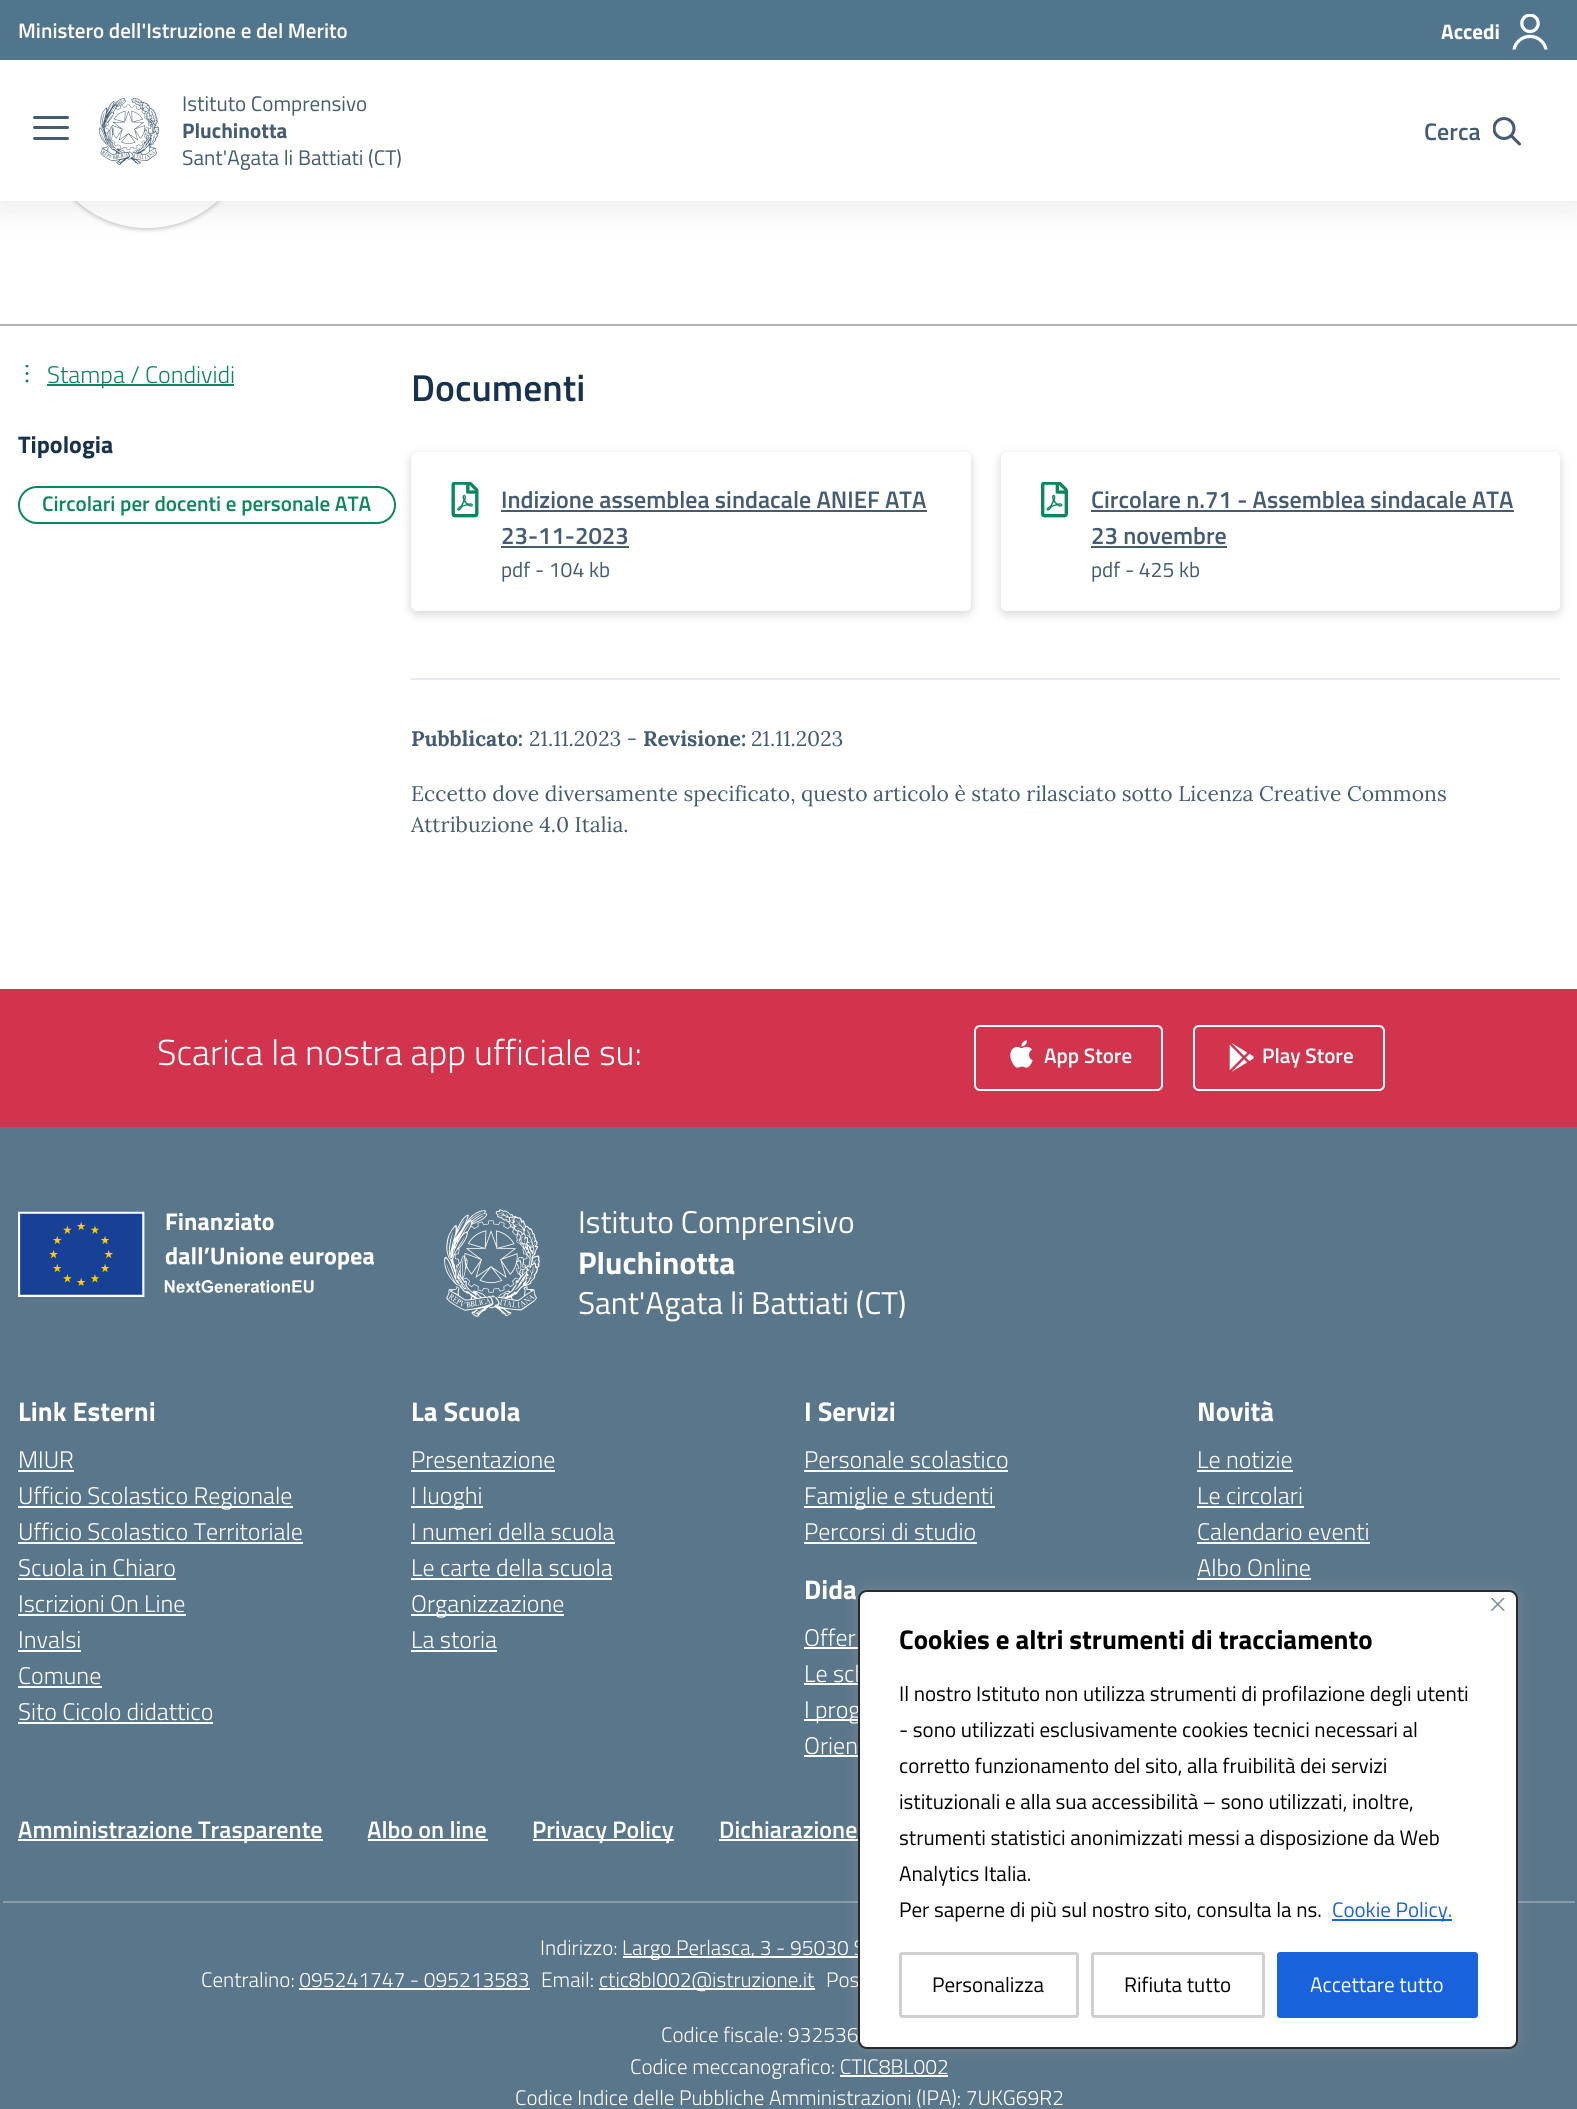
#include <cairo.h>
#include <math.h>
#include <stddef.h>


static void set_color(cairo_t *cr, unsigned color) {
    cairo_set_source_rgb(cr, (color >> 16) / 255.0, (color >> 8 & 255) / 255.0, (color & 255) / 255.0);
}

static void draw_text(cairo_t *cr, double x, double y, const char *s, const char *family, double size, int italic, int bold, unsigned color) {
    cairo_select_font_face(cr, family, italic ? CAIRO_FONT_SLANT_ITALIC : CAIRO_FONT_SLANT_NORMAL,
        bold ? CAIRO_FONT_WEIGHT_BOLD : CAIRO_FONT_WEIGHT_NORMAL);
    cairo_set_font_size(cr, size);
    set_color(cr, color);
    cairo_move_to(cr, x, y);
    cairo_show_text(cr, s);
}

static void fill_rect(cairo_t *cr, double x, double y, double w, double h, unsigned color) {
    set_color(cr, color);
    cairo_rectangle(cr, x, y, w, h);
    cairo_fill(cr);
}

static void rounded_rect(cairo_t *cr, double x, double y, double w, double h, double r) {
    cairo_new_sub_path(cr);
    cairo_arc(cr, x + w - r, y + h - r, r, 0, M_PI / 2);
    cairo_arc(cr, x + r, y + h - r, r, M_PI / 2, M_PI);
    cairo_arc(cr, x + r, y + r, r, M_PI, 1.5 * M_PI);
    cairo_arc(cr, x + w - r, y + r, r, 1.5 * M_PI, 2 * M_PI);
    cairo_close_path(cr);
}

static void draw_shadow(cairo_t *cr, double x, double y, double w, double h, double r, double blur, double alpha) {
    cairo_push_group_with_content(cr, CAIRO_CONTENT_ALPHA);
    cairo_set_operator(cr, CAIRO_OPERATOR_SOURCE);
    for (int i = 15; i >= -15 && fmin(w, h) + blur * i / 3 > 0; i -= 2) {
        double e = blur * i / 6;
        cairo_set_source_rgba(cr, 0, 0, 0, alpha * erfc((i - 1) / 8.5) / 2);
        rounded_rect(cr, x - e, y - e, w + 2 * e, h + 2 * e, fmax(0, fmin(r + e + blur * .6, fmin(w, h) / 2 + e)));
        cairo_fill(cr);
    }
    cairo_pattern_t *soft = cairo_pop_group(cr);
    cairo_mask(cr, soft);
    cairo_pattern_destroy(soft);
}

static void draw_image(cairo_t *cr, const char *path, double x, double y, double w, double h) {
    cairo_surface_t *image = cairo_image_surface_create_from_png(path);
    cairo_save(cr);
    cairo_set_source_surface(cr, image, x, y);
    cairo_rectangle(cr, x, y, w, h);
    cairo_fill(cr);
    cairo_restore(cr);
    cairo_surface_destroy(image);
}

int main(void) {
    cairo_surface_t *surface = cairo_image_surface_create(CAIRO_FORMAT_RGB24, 1577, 2109);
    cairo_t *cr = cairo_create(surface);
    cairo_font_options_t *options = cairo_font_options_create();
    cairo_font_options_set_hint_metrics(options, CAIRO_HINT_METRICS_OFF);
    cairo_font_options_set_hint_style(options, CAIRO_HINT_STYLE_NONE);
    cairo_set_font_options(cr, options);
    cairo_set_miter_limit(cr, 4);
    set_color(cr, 0xFFFFFF);
    cairo_paint(cr);
    set_color(cr, 0x000000);
    draw_shadow(cr, 0, 3, 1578, 201, 0, 18.5, 0.1);
    cairo_save(cr);
    cairo_set_fill_rule(cr, CAIRO_FILL_RULE_EVEN_ODD);
    cairo_new_path(cr);
    cairo_move_to(cr, 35, 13);
    cairo_line_to(cr, 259, 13);
    cairo_line_to(cr, 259, 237);
    cairo_line_to(cr, 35, 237);
    cairo_close_path(cr);
    cairo_move_to(cr, 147, 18);
    cairo_curve_to(cr, 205, 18, 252, 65, 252, 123);
    cairo_curve_to(cr, 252, 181, 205, 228, 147, 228);
    cairo_curve_to(cr, 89, 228, 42, 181, 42, 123);
    cairo_curve_to(cr, 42, 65, 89, 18, 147, 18);
    cairo_close_path(cr);
    cairo_clip(cr);
    draw_shadow(cr, 42, 20, 210, 210, 105, 2, 0.2);
    cairo_restore(cr);
    fill_rect(cr, 0, 60, 1577, 141, 0xFFFFFF);
    fill_rect(cr, 0, 0, 1577, 60, 0x51758D);
    draw_text(cr, 18, 38, "Ministero dell'Istruzione e del Merito", "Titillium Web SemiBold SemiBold", 21, 0, 0, 0xFFFFFF);
    draw_text(cr, 1441, 39, "Accedi", "Titillium Web", 21, 0, 1, 0xFFFFFF);
    draw_image(cr, "assets/img1.png", 1512, 14, 36, 36);
    set_color(cr, 0x455B71);
    rounded_rect(cr, 33, 126, 36, 3, 1.5);
    cairo_fill(cr);
    rounded_rect(cr, 33, 116, 36, 3, 1.5);
    cairo_fill(cr);
    rounded_rect(cr, 33, 137, 36, 3, 1.5);
    cairo_fill(cr);
    draw_image(cr, "assets/img2.png", 99, 98, 60, 67);
    draw_text(cr, 182, 111, "Istituto Comprensivo", "Titillium Web", 21.1, 0, 0, 0x455B71);
    draw_text(cr, 182, 138, "Pluchinotta", "Titillium Web", 21.1, 0, 1, 0x455B71);
    draw_text(cr, 182, 165, "Sant'Agata li Battiati (CT)", "Titillium Web", 21.1, 0, 0, 0x455B71);
    draw_text(cr, 1424, 140, "Cerca", "Titillium Web SemiBold SemiBold", 24, 0, 0, 0x455B71);
    draw_image(cr, "assets/img3.png", 1493, 117, 28, 29);
    fill_rect(cr, 0, 324, 1577, 2, 0xB1B1B3);
    draw_image(cr, "assets/img4.png", 25, 365, 4, 18);
    fill_rect(cr, 47, 384, 187, 2, 0x0E865C);
    draw_text(cr, 47, 383, "Stampa / Condividi", "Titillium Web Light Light", 24, 0, 0, 0x0E865C);
    draw_text(cr, 18, 453, "Tipologia", "Titillium Web", 24, 0, 1, 0x17324D);
    rounded_rect(cr, 19, 487, 376, 36, 18);
    set_color(cr, 0x0E865C);
    cairo_stroke(cr);
    draw_text(cr, 42, 511, "Circolari per docenti e personale ATA", "Titillium Web SemiBold SemiBold", 21.1, 0, 0, 0x0E865C);
    draw_text(cr, 411, 401, "Documenti", "Titillium Web SemiBold SemiBold", 37.5, 0, 0, 0x17324D);
    set_color(cr, 0x000000);
    draw_shadow(cr, 411, 455, 560, 159, 6, 5, 0.17);
    set_color(cr, 0xFFFFFF);
    rounded_rect(cr, 411, 452, 560, 159, 6);
    cairo_fill(cr);
    draw_image(cr, "assets/img5.png", 451, 482, 28, 36);
    draw_text(cr, 501, 508, "Indizione assemblea sindacale ANIEF ATA", "Titillium Web SemiBold SemiBold", 24, 0, 0, 0x455B71);
    fill_rect(cr, 501, 510, 426, 2, 0x455B71);
    draw_text(cr, 501, 544, "23-11-2023", "Titillium Web SemiBold SemiBold", 24, 0, 0, 0x455B71);
    fill_rect(cr, 501, 546, 128, 2, 0x455B71);
    draw_text(cr, 501, 577, "pdf - 104 kb", "Titillium Web", 21.1, 0, 0, 0x455B71);
    set_color(cr, 0x000000);
    draw_shadow(cr, 1001, 455, 559, 159, 6, 5, 0.17);
    set_color(cr, 0xFFFFFF);
    rounded_rect(cr, 1001, 452, 559, 159, 6);
    cairo_fill(cr);
    draw_image(cr, "assets/img6.png", 1041, 482, 27, 36);
    draw_text(cr, 1091, 508, "Circolare n.71 - Assemblea sindacale ATA", "Titillium Web SemiBold SemiBold", 24, 0, 0, 0x455B71);
    fill_rect(cr, 1091, 510, 423, 2, 0x455B71);
    draw_text(cr, 1091, 544, "23 novembre", "Titillium Web SemiBold SemiBold", 24, 0, 0, 0x455B71);
    fill_rect(cr, 1091, 546, 136, 2, 0x455B71);
    draw_text(cr, 1091, 577, "pdf - 425 kb", "Titillium Web", 21.1, 0, 0, 0x455B71);
    fill_rect(cr, 411, 678, 1149, 2, 0xE7EAED);
    draw_text(cr, 411, 746, "Pubblicato:", "Lora", 21.1, 0, 1, 0x455B71);
    draw_text(cr, 529, 746, "21.11.2023 -", "Lora", 21.1, 0, 0, 0x455B71);
    draw_text(cr, 643, 746, "Revisione:", "Lora", 21.1, 0, 1, 0x455B71);
    draw_text(cr, 751, 746, "21.11.2023", "Lora", 21.1, 0, 0, 0x455B71);
    draw_text(cr, 411, 801, "Eccetto dove diversamente specificato, questo articolo è stato rilasciato sotto Licenza Creative Commons", "Lora", 21.1, 0, 0, 0x455B71);
    draw_text(cr, 411, 832, "Attribuzione 4.0 Italia.", "Lora", 21.1, 0, 0, 0x455B71);
    fill_rect(cr, 0, 989, 1577, 138, 0xD1344C);
    draw_text(cr, 157, 1065, "Scarica la nostra app ufficiale su:", "Titillium Web Light Light", 36, 0, 0, 0xFFFFFF);
    rounded_rect(cr, 975, 1026, 187, 64, 5);
    cairo_stroke(cr);
    draw_image(cr, "assets/img7.png", 1010, 1040, 23, 28);
    draw_text(cr, 1044, 1063, "App Store", "Titillium Web SemiBold SemiBold", 21, 0, 0, 0xFFFFFF);
    rounded_rect(cr, 1194, 1026, 190, 64, 5);
    cairo_stroke(cr);
    draw_image(cr, "assets/img8.png", 1229, 1043, 25, 29);
    draw_text(cr, 1262, 1063, "Play Store", "Titillium Web SemiBold SemiBold", 21, 0, 0, 0xFFFFFF);
    fill_rect(cr, 0, 1127, 1577, 982, 0x5A768A);
    draw_image(cr, "assets/img9.png", 18, 1211, 356, 86);
    draw_image(cr, "assets/img10.png", 444, 1209, 96, 108);
    draw_text(cr, 578, 1233, "Istituto Comprensivo", "Titillium Web", 31.5, 0, 0, 0xFFFFFF);
    draw_text(cr, 578, 1274, "Pluchinotta", "Titillium Web", 31.5, 0, 1, 0xFFFFFF);
    draw_text(cr, 578, 1314, "Sant'Agata li Battiati (CT)", "Titillium Web", 31.5, 0, 0, 0xFFFFFF);
    draw_text(cr, 18, 1421, "Link Esterni", "Titillium Web", 27, 0, 1, 0xFFFFFF);
    draw_text(cr, 18, 1468, "MIUR", "Titillium Web Light Light", 24, 0, 0, 0xFFFFFF);
    fill_rect(cr, 18, 1470, 56, 2, 0xFFFFFF);
    fill_rect(cr, 18, 1506, 275, 2, 0xFFFFFF);
    draw_text(cr, 18, 1504, "Ufficio Scolastico Regionale", "Titillium Web Light Light", 24, 0, 0, 0xFFFFFF);
    draw_text(cr, 18, 1540, "Ufficio Scolastico Territoriale", "Titillium Web Light Light", 24, 0, 0, 0xFFFFFF);
    fill_rect(cr, 18, 1542, 285, 2, 0xFFFFFF);
    draw_text(cr, 18, 1576, "Scuola in Chiaro", "Titillium Web Light Light", 24, 0, 0, 0xFFFFFF);
    fill_rect(cr, 18, 1578, 158, 2, 0xFFFFFF);
    draw_text(cr, 18, 1612, "Iscrizioni On Line", "Titillium Web Light Light", 24, 0, 0, 0xFFFFFF);
    fill_rect(cr, 18, 1614, 168, 2, 0xFFFFFF);
    draw_text(cr, 18, 1648, "Invalsi", "Titillium Web Light Light", 24, 0, 0, 0xFFFFFF);
    fill_rect(cr, 18, 1650, 63, 2, 0xFFFFFF);
    draw_text(cr, 18, 1684, "Comune", "Titillium Web Light Light", 24, 0, 0, 0xFFFFFF);
    fill_rect(cr, 18, 1686, 84, 2, 0xFFFFFF);
    draw_text(cr, 18, 1720, "Sito Cicolo didattico", "Titillium Web Light Light", 24, 0, 0, 0xFFFFFF);
    fill_rect(cr, 18, 1722, 195, 2, 0xFFFFFF);
    draw_text(cr, 411, 1421, "La Scuola", "Titillium Web", 27, 0, 1, 0xFFFFFF);
    draw_text(cr, 411, 1468, "Presentazione", "Titillium Web Light Light", 24, 0, 0, 0xFFFFFF);
    fill_rect(cr, 411, 1470, 144, 2, 0xFFFFFF);
    fill_rect(cr, 411, 1506, 72, 2, 0xFFFFFF);
    draw_text(cr, 411, 1504, "I luoghi", "Titillium Web Light Light", 24, 0, 0, 0xFFFFFF);
    draw_text(cr, 411, 1540, "I numeri della scuola", "Titillium Web Light Light", 24, 0, 0, 0xFFFFFF);
    fill_rect(cr, 411, 1542, 204, 2, 0xFFFFFF);
    draw_text(cr, 411, 1576, "Le carte della scuola", "Titillium Web Light Light", 24, 0, 0, 0xFFFFFF);
    fill_rect(cr, 411, 1578, 201, 2, 0xFFFFFF);
    fill_rect(cr, 411, 1614, 153, 2, 0xFFFFFF);
    draw_text(cr, 411, 1612, "Organizzazione", "Titillium Web Light Light", 24, 0, 0, 0xFFFFFF);
    draw_text(cr, 411, 1648, "La storia", "Titillium Web Light Light", 24, 0, 0, 0xFFFFFF);
    fill_rect(cr, 411, 1650, 86, 2, 0xFFFFFF);
    draw_text(cr, 804, 1421, "I Servizi", "Titillium Web", 27, 0, 1, 0xFFFFFF);
    draw_text(cr, 804, 1468, "Personale scolastico", "Titillium Web Light Light", 24, 0, 0, 0xFFFFFF);
    fill_rect(cr, 804, 1470, 204, 2, 0xFFFFFF);
    fill_rect(cr, 804, 1506, 191, 2, 0xFFFFFF);
    draw_text(cr, 804, 1504, "Famiglie e studenti", "Titillium Web Light Light", 24, 0, 0, 0xFFFFFF);
    draw_text(cr, 804, 1540, "Percorsi di studio", "Titillium Web Light Light", 24, 0, 0, 0xFFFFFF);
    fill_rect(cr, 804, 1542, 173, 2, 0xFFFFFF);
    draw_text(cr, 804, 1599, "Dida", "Titillium Web", 27, 0, 1, 0xFFFFFF);
    draw_text(cr, 804, 1646, "Offer", "Titillium Web Light Light", 24, 0, 0, 0xFFFFFF);
    fill_rect(cr, 804, 1647, 54, 2, 0xFFFFFF);
    draw_text(cr, 804, 1682, "Le sch", "Titillium Web Light Light", 24, 0, 0, 0xFFFFFF);
    fill_rect(cr, 804, 1683, 54, 2, 0xFFFFFF);
    fill_rect(cr, 804, 1719, 54, 2, 0xFFFFFF);
    draw_text(cr, 804, 1718, "I prog", "Titillium Web Light Light", 24, 0, 0, 0xFFFFFF);
    draw_text(cr, 804, 1754, "Orien", "Titillium Web Light Light", 24, 0, 0, 0xFFFFFF);
    fill_rect(cr, 804, 1755, 54, 2, 0xFFFFFF);
    draw_text(cr, 1197, 1421, "Novità", "Titillium Web", 27, 0, 1, 0xFFFFFF);
    draw_text(cr, 1197, 1468, "Le notizie", "Titillium Web Light Light", 24, 0, 0, 0xFFFFFF);
    fill_rect(cr, 1197, 1470, 96, 2, 0xFFFFFF);
    draw_text(cr, 1197, 1504, "Le circolari", "Titillium Web Light Light", 24, 0, 0, 0xFFFFFF);
    fill_rect(cr, 1197, 1506, 107, 2, 0xFFFFFF);
    draw_text(cr, 1197, 1540, "Calendario eventi", "Titillium Web Light Light", 24, 0, 0, 0xFFFFFF);
    fill_rect(cr, 1197, 1542, 173, 2, 0xFFFFFF);
    draw_text(cr, 1197, 1576, "Albo Online", "Titillium Web Light Light", 24, 0, 0, 0xFFFFFF);
    fill_rect(cr, 1197, 1578, 114, 2, 0xFFFFFF);
    fill_rect(cr, 18, 1839, 305, 2, 0xFFFFFF);
    draw_text(cr, 18, 1838, "Amministrazione Trasparente", "Titillium Web SemiBold SemiBold", 24, 0, 0, 0xFFFFFF);
    draw_text(cr, 367, 1838, "Albo on line", "Titillium Web SemiBold SemiBold", 24, 0, 0, 0xFFFFFF);
    fill_rect(cr, 368, 1839, 120, 2, 0xFFFFFF);
    fill_rect(cr, 533, 1839, 141, 2, 0xFFFFFF);
    draw_text(cr, 532, 1838, "Privacy Policy", "Titillium Web SemiBold SemiBold", 24, 0, 0, 0xFFFFFF);
    draw_text(cr, 719, 1838, "Dichiarazione", "Titillium Web SemiBold SemiBold", 24, 0, 0, 0xFFFFFF);
    fill_rect(cr, 719, 1839, 139, 2, 0xFFFFFF);
    fill_rect(cr, 3, 1901, 1572, 2, 0x879BAA);
    draw_text(cr, 540, 1955, "Indirizzo:", "Titillium Web Light Light", 21, 0, 0, 0xFFFFFF);
    fill_rect(cr, 623, 1956, 235, 2, 0xFFFFFF);
    draw_text(cr, 622, 1955, "Largo Perlasca, 3 - 95030 S", "Titillium Web Light Light", 21, 0, 0, 0xFFFFFF);
    draw_text(cr, 201, 1987, "Centralino: 095241747 - 095213583", "Titillium Web Light Light", 21, 0, 0, 0xFFFFFF);
    fill_rect(cr, 299, 1988, 231, 2, 0xFFFFFF);
    draw_text(cr, 541, 1987, "Email:", "Titillium Web Light Light", 21, 0, 0, 0xFFFFFF);
    fill_rect(cr, 599, 1988, 216, 2, 0xFFFFFF);
    draw_text(cr, 599, 1987, "ctic8bl002@istruzione.it", "Titillium Web Light Light", 21, 0, 0, 0xFFFFFF);
    draw_text(cr, 826, 1987, "Pos", "Titillium Web Light Light", 21, 0, 0, 0xFFFFFF);
    draw_text(cr, 661, 2042, "Codice fiscale: 932536", "Titillium Web Light Light", 21, 0, 0, 0xFFFFFF);
    draw_text(cr, 630, 2074, "Codice meccanografico: CTIC8BL002", "Titillium Web Light Light", 21, 0, 0, 0xFFFFFF);
    fill_rect(cr, 840, 2075, 108, 2, 0xFFFFFF);
    draw_text(cr, 515, 2105, "Codice Indice delle Pubbliche Amministrazioni (IPA): 7UKG69R2", "Titillium Web Light Light", 21, 0, 0, 0xFFFFFF);
    set_color(cr, 0xACABAB);
    draw_shadow(cr, 858, 1589, 660, 459, 9, 7.5, 0.3);
    set_color(cr, 0xFFFFFF);
    rounded_rect(cr, 859, 1591, 658, 457, 8);
    cairo_fill_preserve(cr);
    set_color(cr, 0x2A2A2A);
    cairo_stroke(cr);
    draw_image(cr, "assets/img11.png", 1491, 1598, 14, 13);
    draw_text(cr, 899, 1649, "Cookies e altri strumenti di tracciamento", "Titillium Web", 27, 0, 1, 0x000000);
    draw_text(cr, 899, 1701, "Il nostro Istituto non utilizza strumenti di profilazione degli utenti", "Titillium Web", 21, 0, 0, 0x000000);
    draw_text(cr, 899, 1737, "- sono utilizzati esclusivamente cookies tecnici necessari al", "Titillium Web", 21, 0, 0, 0x000000);
    draw_text(cr, 899, 1773, "corretto funzionamento del sito, alla fruibilità dei servizi", "Titillium Web", 21, 0, 0, 0x000000);
    draw_text(cr, 899, 1809, "istituzionali e alla sua accessibilità – sono utilizzati, inoltre,", "Titillium Web", 21, 0, 0, 0x000000);
    draw_text(cr, 899, 1845, "strumenti statistici anonimizzati messi a disposizione da Web", "Titillium Web", 21, 0, 0, 0x000000);
    draw_text(cr, 899, 1881, "Analytics Italia.", "Titillium Web", 21, 0, 0, 0x000000);
    draw_text(cr, 899, 1917, "Per saperne di più sul nostro sito, consulta la ns.", "Titillium Web", 21, 0, 0, 0x000000);
    fill_rect(cr, 1332, 1919, 120, 2, 0x1863DC);
    draw_text(cr, 1332, 1917, "Cookie Policy.", "Titillium Web", 21, 0, 0, 0x1863DC);
    rounded_rect(cr, 900.5, 1953.5, 177, 63, 1.5);
    set_color(cr, 0xD0D0D0);
    cairo_set_line_width(cr, 3);
    cairo_stroke(cr);
    draw_text(cr, 932, 1992, "Personalizza", "Titillium Web", 21, 0, 0, 0x000000);
    rounded_rect(cr, 1092.5, 1953.5, 171, 63, 1.5);
    set_color(cr, 0xD0D0D0);
    cairo_stroke(cr);
    draw_text(cr, 1124, 1992, "Rifiuta tutto", "Titillium Web", 21, 0, 0, 0x000000);
    set_color(cr, 0x1863DC);
    rounded_rect(cr, 1278.5, 1953.5, 198, 63, 1.5);
    cairo_fill_preserve(cr);
    cairo_stroke(cr);
    draw_text(cr, 1310, 1992, "Accettare tutto", "Titillium Web", 21, 0, 0, 0xFFFFFF);
    cairo_surface_write_to_png(surface, "output.png");
    cairo_font_options_destroy(options);
    cairo_destroy(cr);
    cairo_surface_destroy(surface);
    return 0;
}
